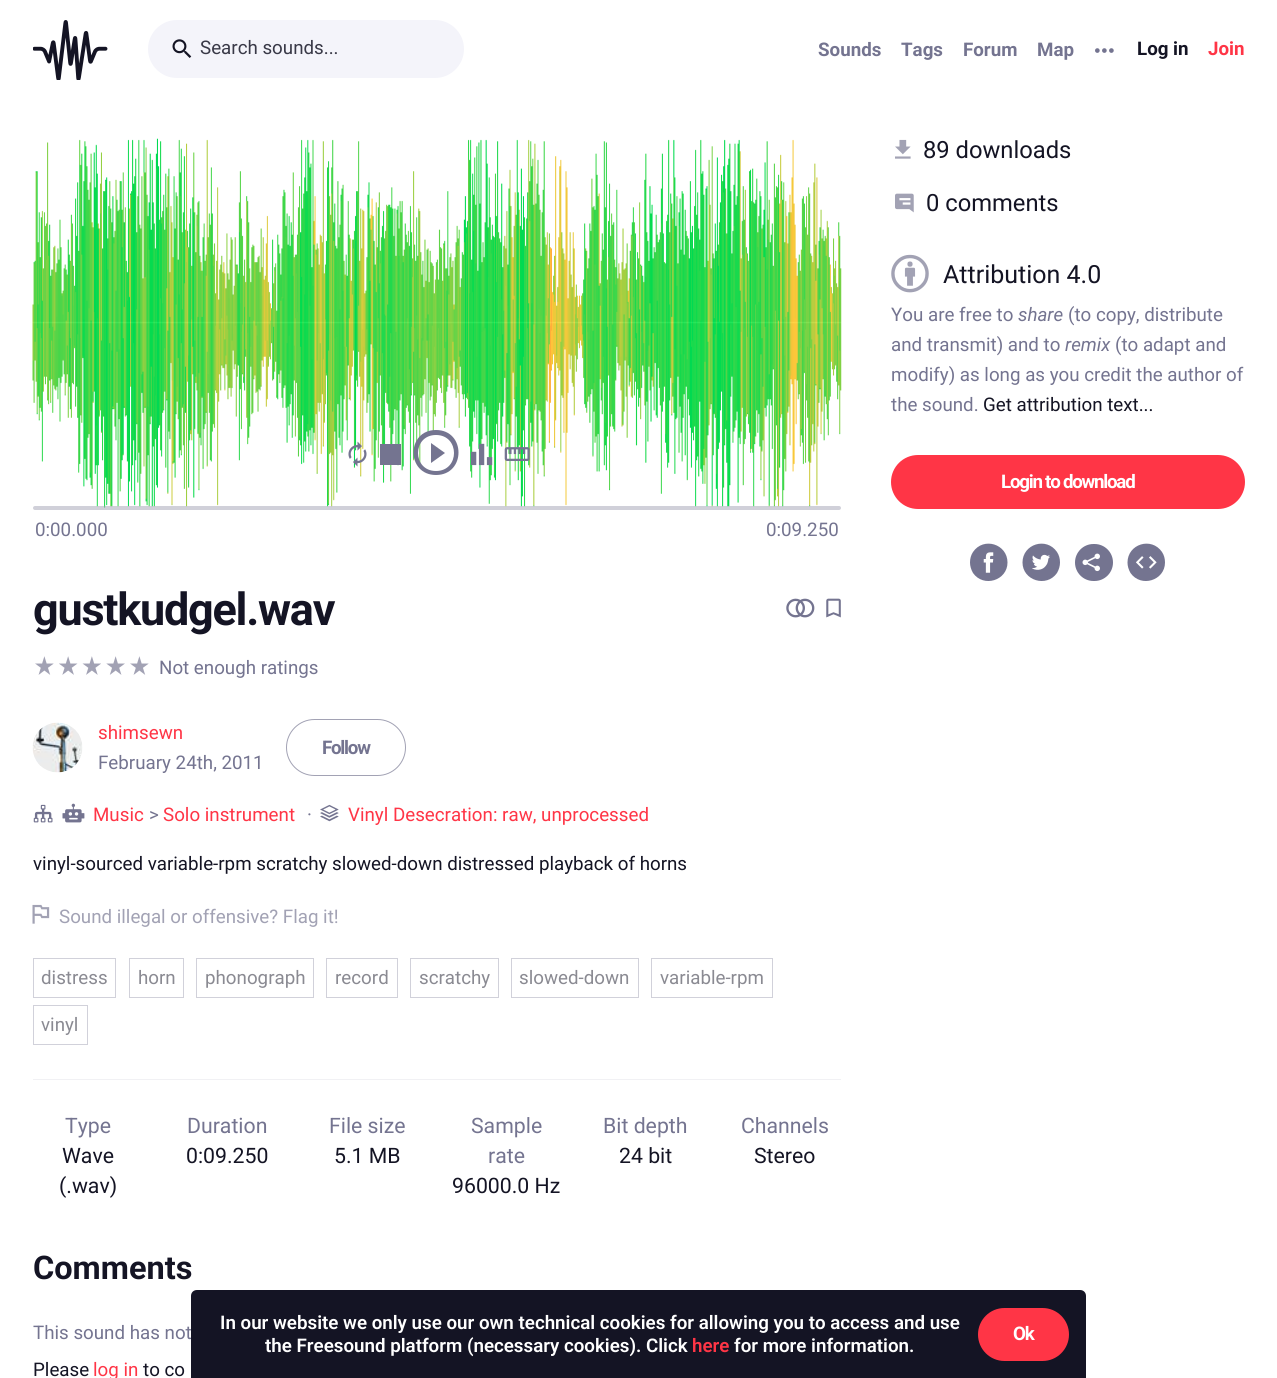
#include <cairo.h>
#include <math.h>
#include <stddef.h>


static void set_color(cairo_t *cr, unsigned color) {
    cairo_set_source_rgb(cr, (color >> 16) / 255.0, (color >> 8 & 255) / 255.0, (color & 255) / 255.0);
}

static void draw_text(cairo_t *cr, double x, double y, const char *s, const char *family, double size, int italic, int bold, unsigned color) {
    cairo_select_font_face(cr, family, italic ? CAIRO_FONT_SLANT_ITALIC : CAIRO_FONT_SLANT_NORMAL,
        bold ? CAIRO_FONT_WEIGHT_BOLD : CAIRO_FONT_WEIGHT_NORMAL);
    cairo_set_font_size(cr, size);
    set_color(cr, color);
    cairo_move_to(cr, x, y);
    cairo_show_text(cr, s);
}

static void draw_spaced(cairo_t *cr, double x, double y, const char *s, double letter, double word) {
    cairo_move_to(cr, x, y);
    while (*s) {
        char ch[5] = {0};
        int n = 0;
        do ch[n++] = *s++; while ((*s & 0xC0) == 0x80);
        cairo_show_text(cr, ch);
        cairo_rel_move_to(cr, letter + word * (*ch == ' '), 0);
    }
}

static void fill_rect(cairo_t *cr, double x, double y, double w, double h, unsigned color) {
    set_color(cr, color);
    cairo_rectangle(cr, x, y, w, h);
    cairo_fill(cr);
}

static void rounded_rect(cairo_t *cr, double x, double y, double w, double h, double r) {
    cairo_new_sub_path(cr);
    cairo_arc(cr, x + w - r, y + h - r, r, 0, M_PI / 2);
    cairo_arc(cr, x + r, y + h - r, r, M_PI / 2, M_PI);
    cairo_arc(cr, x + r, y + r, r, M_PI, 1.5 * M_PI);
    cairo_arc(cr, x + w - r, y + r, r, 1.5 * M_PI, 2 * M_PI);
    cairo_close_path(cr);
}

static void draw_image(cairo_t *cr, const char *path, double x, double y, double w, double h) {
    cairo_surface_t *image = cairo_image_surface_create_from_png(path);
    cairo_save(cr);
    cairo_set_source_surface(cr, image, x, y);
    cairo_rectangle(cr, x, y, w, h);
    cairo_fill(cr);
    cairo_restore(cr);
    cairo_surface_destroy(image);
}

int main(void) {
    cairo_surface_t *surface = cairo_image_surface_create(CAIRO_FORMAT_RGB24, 1277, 1378);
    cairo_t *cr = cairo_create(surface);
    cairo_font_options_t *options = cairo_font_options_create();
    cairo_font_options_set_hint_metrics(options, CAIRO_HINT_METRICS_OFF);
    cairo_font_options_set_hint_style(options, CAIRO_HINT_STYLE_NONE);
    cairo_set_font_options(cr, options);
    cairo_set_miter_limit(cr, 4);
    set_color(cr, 0xFFFFFF);
    cairo_paint(cr);
    draw_image(cr, "assets/img1.png", 33, 20, 75, 60);
    set_color(cr, 0xF4F4FA);
    rounded_rect(cr, 148, 20, 316, 58, 29);
    cairo_fill(cr);
    draw_image(cr, "assets/img2.png", 172, 39, 20, 19);
    draw_text(cr, 200, 54, "Search sounds...", "Roboto", 18.75, 0, 0, 0x393947);
    draw_text(cr, 818, 56, "Sounds", "Roboto", 18.75, 0, 1, 0x747490);
    draw_text(cr, 901, 56, "Tags", "Roboto", 18.75, 0, 1, 0x747490);
    draw_text(cr, 963, 56, "Forum", "Roboto", 18.75, 0, 1, 0x747490);
    draw_text(cr, 1037, 56, "Map", "Roboto", 18.75, 0, 1, 0x747490);
    draw_image(cr, "assets/img3.png", 1095, 48, 19, 5);
    draw_text(cr, 1137, 55, "Log in", "Roboto", 18.75, 0, 1, 0x141424);
    draw_text(cr, 1208, 55, "Join", "Roboto", 18.75, 0, 1, 0xFF3546);
    draw_image(cr, "assets/img4.png", 895, 139, 16, 20);
    draw_text(cr, 923, 158, "89 downloads", "Roboto", 23.75, 0, 0, 0x141424);
    draw_image(cr, "assets/img5.png", 895, 193, 19, 20);
    draw_text(cr, 926, 211, "0 comments", "Roboto", 23.75, 0, 0, 0x141424);
    draw_image(cr, "assets/img6.png", 891, 254, 38, 39);
    draw_text(cr, 943, 283, "Attribution 4.0", "Roboto", 25, 0, 0, 0x141424);
    draw_text(cr, 891, 321, "You are free to", "Roboto", 18.75, 0, 0, 0x747490);
    draw_text(cr, 1018, 321, "share", "Roboto", 18.75, 1, 0, 0x747490);
    draw_text(cr, 1068, 321, "(to copy, distribute", "Roboto", 18.75, 0, 0, 0x747490);
    draw_text(cr, 891, 351, "and transmit) and to", "Roboto", 18.75, 0, 0, 0x747490);
    draw_text(cr, 1065, 351, "remix", "Roboto", 18.75, 1, 0, 0x747490);
    draw_text(cr, 1115, 351, "(to adapt and", "Roboto", 18.75, 0, 0, 0x747490);
    draw_text(cr, 891, 381, "modify) as long as you credit the author of", "Roboto", 18.75, 0, 0, 0x747490);
    draw_text(cr, 891, 411, "the sound.", "Roboto", 18.75, 0, 0, 0x747490);
    draw_text(cr, 983, 411, "Get attribution text...", "Roboto", 18.75, 0, 0, 0x141424);
    set_color(cr, 0xFF3546);
    rounded_rect(cr, 891, 455, 354, 54, 27);
    cairo_fill(cr);
    cairo_select_font_face(cr, "Roboto", CAIRO_FONT_SLANT_NORMAL, CAIRO_FONT_WEIGHT_BOLD);
    set_color(cr, 0xFFFFFF);
    draw_spaced(cr, 1001, 488, "Login to download", -1.25, 0);
    set_color(cr, 0x747490);
    cairo_new_path(cr);
    cairo_move_to(cr, 970, 562.5);
    cairo_curve_to(cr, 970, 558.5, 971, 555, 973, 552);
    cairo_curve_to(cr, 983.5, 536.5, 1007.5, 544, 1007.5, 562.5);
    cairo_curve_to(cr, 1007.5, 580.5, 983.5, 588, 973, 573);
    cairo_curve_to(cr, 971, 569.5, 970, 566, 970, 562.5);
    cairo_close_path(cr);
    cairo_fill(cr);
    draw_image(cr, "assets/img7.png", 983, 552, 11, 21);
    cairo_new_path(cr);
    cairo_move_to(cr, 1022.5, 562.5);
    cairo_curve_to(cr, 1022.5, 544, 1046.5, 536.5, 1057, 552);
    cairo_curve_to(cr, 1059, 555, 1060, 558.5, 1060, 562.5);
    cairo_curve_to(cr, 1060, 566, 1059, 569.5, 1057, 573);
    cairo_curve_to(cr, 1046.5, 588, 1022.5, 580.5, 1022.5, 562.5);
    cairo_close_path(cr);
    cairo_fill(cr);
    draw_image(cr, "assets/img8.png", 1032, 554, 18, 16);
    rounded_rect(cr, 1075, 544, 38, 37, 18.5);
    cairo_fill(cr);
    draw_image(cr, "assets/img9.png", 1082, 553, 18, 19);
    cairo_new_path(cr);
    cairo_move_to(cr, 1127.5, 562.5);
    cairo_curve_to(cr, 1127.5, 544, 1151.5, 536.5, 1162, 552);
    cairo_curve_to(cr, 1164, 555, 1165, 558.5, 1165, 562.5);
    cairo_curve_to(cr, 1165, 580.5, 1141, 588, 1130.5, 573);
    cairo_curve_to(cr, 1128.5, 569.5, 1127.5, 566, 1127.5, 562.5);
    cairo_close_path(cr);
    cairo_fill(cr);
    draw_image(cr, "assets/img10.png", 1136, 556, 21, 13);
    draw_image(cr, "assets/img11.png", 32, 138, 810, 370);
    draw_image(cr, "assets/img12.png", 348, 441, 19, 26);
    fill_rect(cr, 380, 444, 21, 21, 0x747490);
    cairo_new_path(cr);
    cairo_move_to(cr, 431, 463);
    cairo_line_to(cr, 445, 453);
    cairo_line_to(cr, 431, 443);
    cairo_close_path(cr);
    cairo_move_to(cr, 436, 430);
    cairo_curve_to(cr, 406, 430, 406, 475, 436, 475);
    cairo_curve_to(cr, 466, 475, 466, 430, 436, 430);
    cairo_close_path(cr);
    cairo_move_to(cr, 436, 471);
    cairo_curve_to(cr, 412, 471, 412, 435, 436, 435);
    cairo_curve_to(cr, 460, 435, 460, 471, 436, 471);
    cairo_close_path(cr);
    cairo_fill(cr);
    draw_image(cr, "assets/img13.png", 471, 443, 22, 23);
    draw_image(cr, "assets/img14.png", 504, 447, 26, 14);
    cairo_set_source_rgba(cr, 0.635, 0.635, 0.706, 0.5);
    rounded_rect(cr, 33, 506, 808, 4, 2);
    cairo_fill(cr);
    draw_text(cr, 35, 536, "0:00.000", "Roboto", 18.75, 0, 0, 0x747490);
    draw_text(cr, 766, 536, "0:09.250", "Roboto", 18.75, 0, 0, 0x747490);
    cairo_select_font_face(cr, "Roboto", CAIRO_FONT_SLANT_NORMAL, CAIRO_FONT_WEIGHT_BOLD);
    cairo_set_font_size(cr, 45);
    set_color(cr, 0x141424);
    draw_spaced(cr, 33, 625, "gustkudgel.wav", -1.25, 0);
    draw_image(cr, "assets/img15.png", 786, 598, 29, 20);
    draw_image(cr, "assets/img16.png", 826, 598, 15, 20);
    draw_image(cr, "assets/img17.png", 35, 656, 19, 19);
    draw_image(cr, "assets/img18.png", 59, 656, 19, 19);
    draw_image(cr, "assets/img19.png", 82, 656, 19, 19);
    draw_image(cr, "assets/img20.png", 106, 656, 19, 19);
    draw_image(cr, "assets/img17.png", 130, 656, 19, 19);
    draw_text(cr, 159, 674, "Not enough ratings", "Roboto", 18.75, 0, 0, 0x747490);
    draw_image(cr, "assets/img21.png", 32, 722, 51, 51);
    draw_text(cr, 98, 739, "shimsewn", "Roboto", 18.75, 0, 0, 0xFF3546);
    draw_text(cr, 98, 769, "February 24th, 2011", "Roboto", 18.75, 0, 0, 0x747490);
    rounded_rect(cr, 286.5, 719.5, 119, 56, 28);
    set_color(cr, 0xA2A2B4);
    cairo_set_line_width(cr, 1);
    cairo_stroke(cr);
    cairo_select_font_face(cr, "Roboto", CAIRO_FONT_SLANT_NORMAL, CAIRO_FONT_WEIGHT_BOLD);
    set_color(cr, 0x747490);
    draw_spaced(cr, 322, 754, "Follow", -1.25, 0);
    draw_image(cr, "assets/img22.png", 33, 804, 20, 19);
    draw_image(cr, "assets/img23.png", 62, 803, 23, 20);
    draw_text(cr, 93, 821, "Music", "Roboto", 18.75, 0, 0, 0xFF3546);
    draw_text(cr, 149, 821, ">", "Roboto", 18.75, 0, 0, 0x747490);
    draw_text(cr, 163, 821, "Solo instrument", "Roboto", 18.75, 0, 0, 0xFF3546);
    draw_text(cr, 307, 821, "·", "Roboto", 18.75, 0, 0, 0x747490);
    draw_image(cr, "assets/img24.png", 320, 804, 19, 18);
    draw_text(cr, 348, 821, "Vinyl Desecration: raw, unprocessed", "Roboto", 18.75, 0, 0, 0xFF3546);
    draw_text(cr, 33, 870, "vinyl-sourced variable-rpm scratchy slowed-down distressed playback of horns", "Roboto", 18.75, 0, 0, 0x141424);
    draw_image(cr, "assets/img25.png", 32, 904, 18, 20);
    draw_text(cr, 59, 923, "Sound illegal or offensive? Flag it!", "Roboto", 18.75, 0, 0, 0xA2A2B4);
    cairo_rectangle(cr, 33.5, 958.5, 82, 39);
    set_color(cr, 0xD1D1DA);
    cairo_stroke(cr);
    draw_text(cr, 41, 984, "distress", "Roboto", 18.75, 0, 0, 0x8A8A92);
    cairo_rectangle(cr, 129.5, 958.5, 54, 39);
    set_color(cr, 0xD1D1DA);
    cairo_stroke(cr);
    draw_text(cr, 138, 984, "horn", "Roboto", 18.75, 0, 0, 0x8A8A92);
    cairo_rectangle(cr, 196.5, 958.5, 117, 39);
    set_color(cr, 0xD1D1DA);
    cairo_stroke(cr);
    draw_text(cr, 205, 984, "phonograph", "Roboto", 18.75, 0, 0, 0x8A8A92);
    cairo_rectangle(cr, 326.5, 958.5, 71, 39);
    set_color(cr, 0xD1D1DA);
    cairo_stroke(cr);
    draw_text(cr, 335, 984, "record", "Roboto", 18.75, 0, 0, 0x8A8A92);
    cairo_rectangle(cr, 410.5, 958.5, 88, 39);
    set_color(cr, 0xD1D1DA);
    cairo_stroke(cr);
    draw_text(cr, 419, 984, "scratchy", "Roboto", 18.75, 0, 0, 0x8A8A92);
    cairo_rectangle(cr, 511.5, 958.5, 127, 39);
    set_color(cr, 0xD1D1DA);
    cairo_stroke(cr);
    draw_text(cr, 519, 984, "slowed-down", "Roboto", 18.75, 0, 0, 0x8A8A92);
    cairo_rectangle(cr, 651.5, 958.5, 121, 39);
    set_color(cr, 0xD1D1DA);
    cairo_stroke(cr);
    draw_text(cr, 660, 984, "variable-rpm", "Roboto", 18.75, 0, 0, 0x8A8A92);
    cairo_rectangle(cr, 33.5, 1005.5, 54, 39);
    set_color(cr, 0xD1D1DA);
    cairo_stroke(cr);
    draw_text(cr, 41, 1031, "vinyl", "Roboto", 18.75, 0, 0, 0x8A8A92);
    fill_rect(cr, 33, 1079, 808, 1, 0xF1F1F4);
    draw_text(cr, 65, 1133, "Type", "Roboto", 21.25, 0, 0, 0x747490);
    draw_text(cr, 62, 1163, "Wave", "Roboto", 21.25, 0, 0, 0x141424);
    draw_text(cr, 59, 1193, "(.wav)", "Roboto", 21.25, 0, 0, 0x141424);
    draw_text(cr, 187, 1133, "Duration", "Roboto", 21.25, 0, 0, 0x747490);
    draw_text(cr, 186, 1163, "0:09.250", "Roboto", 21.25, 0, 0, 0x141424);
    draw_text(cr, 329, 1133, "File size", "Roboto", 21.25, 0, 0, 0x747490);
    draw_text(cr, 334, 1163, "5.1 MB", "Roboto", 21.25, 0, 0, 0x141424);
    draw_text(cr, 471, 1133, "Sample", "Roboto", 21.25, 0, 0, 0x747490);
    draw_text(cr, 488, 1163, "rate", "Roboto", 21.25, 0, 0, 0x747490);
    draw_text(cr, 452, 1193, "96000.0 Hz", "Roboto", 21.25, 0, 0, 0x141424);
    draw_text(cr, 603, 1133, "Bit depth", "Roboto", 21.25, 0, 0, 0x747490);
    draw_text(cr, 619, 1163, "24 bit", "Roboto", 21.25, 0, 0, 0x141424);
    draw_text(cr, 741, 1133, "Channels", "Roboto", 21.25, 0, 0, 0x747490);
    draw_text(cr, 754, 1163, "Stereo", "Roboto", 21.25, 0, 0, 0x141424);
    draw_text(cr, 33, 1279, "Comments", "Roboto", 32.5, 0, 1, 0x141424);
    draw_text(cr, 33, 1339, "This sound has not", "Roboto", 18.75, 0, 0, 0x747490);
    draw_text(cr, 33, 1376, "Please", "Roboto", 18.75, 0, 0, 0x141424);
    draw_text(cr, 93, 1376, "log in", "Roboto", 18.75, 0, 0, 0xFF3546);
    draw_text(cr, 143, 1376, "to co", "Roboto", 18.75, 0, 0, 0x141424);
    cairo_new_path(cr);
    cairo_move_to(cr, 197, 1290);
    cairo_line_to(cr, 1080, 1290);
    cairo_curve_to(cr, 1083.5, 1290, 1086, 1292.5, 1086, 1296);
    cairo_line_to(cr, 1086, 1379);
    cairo_line_to(cr, 191, 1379);
    cairo_line_to(cr, 191, 1296);
    cairo_curve_to(cr, 191, 1292.5, 193.5, 1290, 197, 1290);
    cairo_close_path(cr);
    cairo_fill(cr);
    draw_text(cr, 220, 1329, "In our website we only use our own technical cookies for allowing you to access and use", "Roboto SemiBold", 18.75, 0, 0, 0xFFFFFF);
    draw_text(cr, 265, 1352, "the Freesound platform (necessary cookies). Click", "Roboto SemiBold", 18.75, 0, 0, 0xFFFFFF);
    draw_text(cr, 692, 1352, "here", "Roboto SemiBold", 18.75, 0, 0, 0xFF3546);
    draw_text(cr, 734, 1352, "for more information.", "Roboto SemiBold", 18.75, 0, 0, 0xFFFFFF);
    set_color(cr, 0xFF3546);
    rounded_rect(cr, 978, 1308, 91, 53, 26.5);
    cairo_fill(cr);
    cairo_select_font_face(cr, "Roboto", CAIRO_FONT_SLANT_NORMAL, CAIRO_FONT_WEIGHT_BOLD);
    set_color(cr, 0xFFFFFF);
    draw_spaced(cr, 1013, 1340, "Ok", -1.25, 0);
    cairo_surface_write_to_png(surface, "output.png");
    cairo_font_options_destroy(options);
    cairo_destroy(cr);
    cairo_surface_destroy(surface);
    return 0;
}
